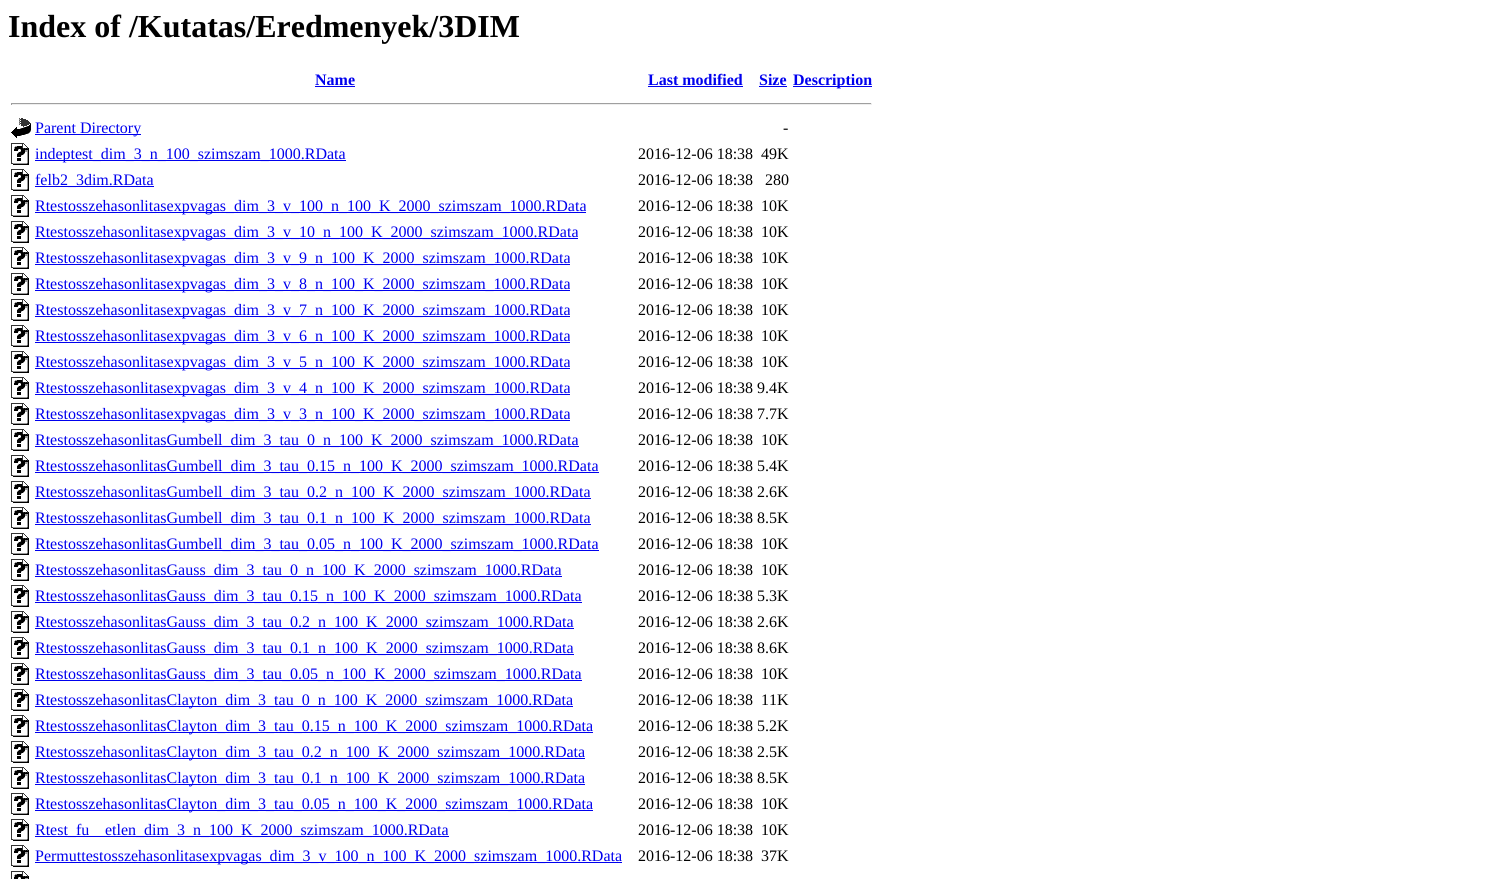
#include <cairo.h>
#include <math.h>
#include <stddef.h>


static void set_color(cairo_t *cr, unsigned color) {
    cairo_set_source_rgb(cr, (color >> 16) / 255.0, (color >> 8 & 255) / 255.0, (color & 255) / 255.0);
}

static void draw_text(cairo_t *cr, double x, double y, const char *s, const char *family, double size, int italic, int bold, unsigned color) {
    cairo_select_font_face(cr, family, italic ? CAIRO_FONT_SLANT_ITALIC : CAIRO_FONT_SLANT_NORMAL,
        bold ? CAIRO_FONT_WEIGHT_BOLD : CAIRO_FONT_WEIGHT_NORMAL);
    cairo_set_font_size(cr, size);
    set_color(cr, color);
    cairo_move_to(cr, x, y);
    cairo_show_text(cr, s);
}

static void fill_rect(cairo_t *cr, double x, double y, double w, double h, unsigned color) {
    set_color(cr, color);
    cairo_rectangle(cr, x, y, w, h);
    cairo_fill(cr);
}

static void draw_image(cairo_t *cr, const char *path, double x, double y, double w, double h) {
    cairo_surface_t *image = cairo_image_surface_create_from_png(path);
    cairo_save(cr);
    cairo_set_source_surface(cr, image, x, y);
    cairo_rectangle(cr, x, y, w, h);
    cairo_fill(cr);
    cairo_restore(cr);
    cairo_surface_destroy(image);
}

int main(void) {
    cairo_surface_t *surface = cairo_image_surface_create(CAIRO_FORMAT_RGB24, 1495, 879);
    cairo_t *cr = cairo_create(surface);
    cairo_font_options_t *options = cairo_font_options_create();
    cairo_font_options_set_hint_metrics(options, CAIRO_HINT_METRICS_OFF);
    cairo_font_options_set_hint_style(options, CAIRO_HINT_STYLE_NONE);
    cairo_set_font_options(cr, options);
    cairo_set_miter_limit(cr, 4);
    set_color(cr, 0xFFFFFF);
    cairo_paint(cr);
    draw_text(cr, 8, 37, "Index of /Kutatas/Eredmenyek/3DIM", "Liberation Serif", 32, 0, 1, 0x000000);
    draw_text(cr, 315, 85, "Name", "Liberation Serif", 16, 0, 1, 0x0000EE);
    fill_rect(cr, 315, 86, 40, 1, 0x0000EE);
    draw_text(cr, 648, 85, "Last modified", "Liberation Serif", 16, 0, 1, 0x0000EE);
    fill_rect(cr, 648, 86, 95, 1, 0x0000EE);
    draw_text(cr, 759, 85, "Size", "Liberation Serif", 16, 0, 1, 0x0000EE);
    fill_rect(cr, 759, 86, 28, 1, 0x0000EE);
    fill_rect(cr, 793, 86, 79, 1, 0x0000EE);
    draw_text(cr, 793, 85, "Description", "Liberation Serif", 16, 0, 1, 0x0000EE);
    fill_rect(cr, 11, 103, 861, 1, 0x9F9F9F);
    fill_rect(cr, 871, 103, 1, 2, 0xEEEEEE);
    fill_rect(cr, 11, 104, 861, 1, 0xEEEEEE);
    fill_rect(cr, 11, 103, 1, 2, 0x9F9F9F);
    draw_image(cr, "assets/img1.png", 11, 118, 20, 20);
    fill_rect(cr, 35, 134, 106, 1, 0x0000EE);
    draw_text(cr, 35, 133, "Parent Directory", "Liberation Serif", 16, 0, 0, 0x0000EE);
    draw_text(cr, 783, 133, "-", "Liberation Serif", 16, 0, 0, 0x000000);
    draw_image(cr, "assets/img2.png", 11, 143, 18, 22);
    fill_rect(cr, 35, 160, 311, 1, 0x0000EE);
    draw_text(cr, 35, 159, "indeptest_dim_3_n_100_szimszam_1000.RData", "Liberation Serif", 16, 0, 0, 0x0000EE);
    draw_text(cr, 638, 159, "2016-12-06 18:38", "Liberation Serif", 16, 0, 0, 0x000000);
    draw_text(cr, 761, 159, "49K", "Liberation Serif", 16, 0, 0, 0x000000);
    draw_image(cr, "assets/img2.png", 11, 169, 18, 22);
    fill_rect(cr, 35, 186, 119, 1, 0x0000EE);
    draw_text(cr, 35, 185, "felb2_3dim.RData", "Liberation Serif", 16, 0, 0, 0x0000EE);
    draw_text(cr, 638, 185, "2016-12-06 18:38", "Liberation Serif", 16, 0, 0, 0x000000);
    draw_text(cr, 765, 185, "280", "Liberation Serif", 16, 0, 0, 0x000000);
    draw_image(cr, "assets/img2.png", 11, 195, 18, 22);
    fill_rect(cr, 35, 212, 551, 1, 0x0000EE);
    draw_text(cr, 35, 211, "Rtestosszehasonlitasexpvagas_dim_3_v_100_n_100_K_2000_szimszam_1000.RData", "Liberation Serif", 16, 0, 0, 0x0000EE);
    draw_text(cr, 638, 211, "2016-12-06 18:38", "Liberation Serif", 16, 0, 0, 0x000000);
    draw_text(cr, 761, 211, "10K", "Liberation Serif", 16, 0, 0, 0x000000);
    draw_image(cr, "assets/img2.png", 11, 221, 18, 22);
    fill_rect(cr, 35, 238, 543, 1, 0x0000EE);
    draw_text(cr, 35, 237, "Rtestosszehasonlitasexpvagas_dim_3_v_10_n_100_K_2000_szimszam_1000.RData", "Liberation Serif", 16, 0, 0, 0x0000EE);
    draw_text(cr, 638, 237, "2016-12-06 18:38", "Liberation Serif", 16, 0, 0, 0x000000);
    draw_text(cr, 761, 237, "10K", "Liberation Serif", 16, 0, 0, 0x000000);
    draw_image(cr, "assets/img2.png", 11, 247, 18, 22);
    fill_rect(cr, 35, 264, 535, 1, 0x0000EE);
    draw_text(cr, 35, 263, "Rtestosszehasonlitasexpvagas_dim_3_v_9_n_100_K_2000_szimszam_1000.RData", "Liberation Serif", 16, 0, 0, 0x0000EE);
    draw_text(cr, 638, 263, "2016-12-06 18:38", "Liberation Serif", 16, 0, 0, 0x000000);
    draw_text(cr, 761, 263, "10K", "Liberation Serif", 16, 0, 0, 0x000000);
    draw_image(cr, "assets/img2.png", 11, 273, 18, 22);
    fill_rect(cr, 35, 290, 535, 1, 0x0000EE);
    draw_text(cr, 35, 289, "Rtestosszehasonlitasexpvagas_dim_3_v_8_n_100_K_2000_szimszam_1000.RData", "Liberation Serif", 16, 0, 0, 0x0000EE);
    draw_text(cr, 638, 289, "2016-12-06 18:38", "Liberation Serif", 16, 0, 0, 0x000000);
    draw_text(cr, 761, 289, "10K", "Liberation Serif", 16, 0, 0, 0x000000);
    draw_image(cr, "assets/img2.png", 11, 299, 18, 22);
    fill_rect(cr, 35, 316, 535, 1, 0x0000EE);
    draw_text(cr, 35, 315, "Rtestosszehasonlitasexpvagas_dim_3_v_7_n_100_K_2000_szimszam_1000.RData", "Liberation Serif", 16, 0, 0, 0x0000EE);
    draw_text(cr, 638, 315, "2016-12-06 18:38", "Liberation Serif", 16, 0, 0, 0x000000);
    draw_text(cr, 761, 315, "10K", "Liberation Serif", 16, 0, 0, 0x000000);
    draw_image(cr, "assets/img2.png", 11, 325, 18, 22);
    fill_rect(cr, 35, 342, 535, 1, 0x0000EE);
    draw_text(cr, 35, 341, "Rtestosszehasonlitasexpvagas_dim_3_v_6_n_100_K_2000_szimszam_1000.RData", "Liberation Serif", 16, 0, 0, 0x0000EE);
    draw_text(cr, 638, 341, "2016-12-06 18:38", "Liberation Serif", 16, 0, 0, 0x000000);
    draw_text(cr, 761, 341, "10K", "Liberation Serif", 16, 0, 0, 0x000000);
    draw_image(cr, "assets/img2.png", 11, 351, 18, 22);
    fill_rect(cr, 35, 368, 535, 1, 0x0000EE);
    draw_text(cr, 35, 367, "Rtestosszehasonlitasexpvagas_dim_3_v_5_n_100_K_2000_szimszam_1000.RData", "Liberation Serif", 16, 0, 0, 0x0000EE);
    draw_text(cr, 638, 367, "2016-12-06 18:38", "Liberation Serif", 16, 0, 0, 0x000000);
    draw_text(cr, 761, 367, "10K", "Liberation Serif", 16, 0, 0, 0x000000);
    draw_image(cr, "assets/img2.png", 11, 377, 18, 22);
    fill_rect(cr, 35, 394, 535, 1, 0x0000EE);
    draw_text(cr, 35, 393, "Rtestosszehasonlitasexpvagas_dim_3_v_4_n_100_K_2000_szimszam_1000.RData", "Liberation Serif", 16, 0, 0, 0x0000EE);
    draw_text(cr, 638, 393, "2016-12-06 18:38 9.4K", "Liberation Serif", 16, 0, 0, 0x000000);
    draw_image(cr, "assets/img2.png", 11, 403, 18, 22);
    fill_rect(cr, 35, 420, 535, 1, 0x0000EE);
    draw_text(cr, 35, 419, "Rtestosszehasonlitasexpvagas_dim_3_v_3_n_100_K_2000_szimszam_1000.RData", "Liberation Serif", 16, 0, 0, 0x0000EE);
    draw_text(cr, 638, 419, "2016-12-06 18:38 7.7K", "Liberation Serif", 16, 0, 0, 0x000000);
    draw_image(cr, "assets/img2.png", 11, 429, 18, 22);
    fill_rect(cr, 35, 446, 544, 1, 0x0000EE);
    draw_text(cr, 35, 445, "RtestosszehasonlitasGumbell_dim_3_tau_0_n_100_K_2000_szimszam_1000.RData", "Liberation Serif", 16, 0, 0, 0x0000EE);
    draw_text(cr, 638, 445, "2016-12-06 18:38", "Liberation Serif", 16, 0, 0, 0x000000);
    draw_text(cr, 761, 445, "10K", "Liberation Serif", 16, 0, 0, 0x000000);
    draw_image(cr, "assets/img2.png", 11, 455, 18, 22);
    fill_rect(cr, 35, 472, 564, 1, 0x0000EE);
    draw_text(cr, 35, 471, "RtestosszehasonlitasGumbell_dim_3_tau_0.15_n_100_K_2000_szimszam_1000.RData", "Liberation Serif", 16, 0, 0, 0x0000EE);
    draw_text(cr, 638, 471, "2016-12-06 18:38 5.4K", "Liberation Serif", 16, 0, 0, 0x000000);
    draw_image(cr, "assets/img2.png", 11, 481, 18, 22);
    fill_rect(cr, 35, 498, 556, 1, 0x0000EE);
    draw_text(cr, 35, 497, "RtestosszehasonlitasGumbell_dim_3_tau_0.2_n_100_K_2000_szimszam_1000.RData", "Liberation Serif", 16, 0, 0, 0x0000EE);
    draw_text(cr, 638, 497, "2016-12-06 18:38 2.6K", "Liberation Serif", 16, 0, 0, 0x000000);
    draw_image(cr, "assets/img2.png", 11, 507, 18, 22);
    fill_rect(cr, 35, 524, 556, 1, 0x0000EE);
    draw_text(cr, 35, 523, "RtestosszehasonlitasGumbell_dim_3_tau_0.1_n_100_K_2000_szimszam_1000.RData", "Liberation Serif", 16, 0, 0, 0x0000EE);
    draw_text(cr, 638, 523, "2016-12-06 18:38 8.5K", "Liberation Serif", 16, 0, 0, 0x000000);
    draw_image(cr, "assets/img2.png", 11, 533, 18, 22);
    fill_rect(cr, 35, 550, 564, 1, 0x0000EE);
    draw_text(cr, 35, 549, "RtestosszehasonlitasGumbell_dim_3_tau_0.05_n_100_K_2000_szimszam_1000.RData", "Liberation Serif", 16, 0, 0, 0x0000EE);
    draw_text(cr, 638, 549, "2016-12-06 18:38", "Liberation Serif", 16, 0, 0, 0x000000);
    draw_text(cr, 761, 549, "10K", "Liberation Serif", 16, 0, 0, 0x000000);
    draw_image(cr, "assets/img2.png", 11, 559, 18, 22);
    fill_rect(cr, 35, 576, 527, 1, 0x0000EE);
    draw_text(cr, 35, 575, "RtestosszehasonlitasGauss_dim_3_tau_0_n_100_K_2000_szimszam_1000.RData", "Liberation Serif", 16, 0, 0, 0x0000EE);
    draw_text(cr, 638, 575, "2016-12-06 18:38", "Liberation Serif", 16, 0, 0, 0x000000);
    draw_text(cr, 761, 575, "10K", "Liberation Serif", 16, 0, 0, 0x000000);
    draw_image(cr, "assets/img2.png", 11, 585, 18, 22);
    fill_rect(cr, 35, 602, 547, 1, 0x0000EE);
    draw_text(cr, 35, 601, "RtestosszehasonlitasGauss_dim_3_tau_0.15_n_100_K_2000_szimszam_1000.RData", "Liberation Serif", 16, 0, 0, 0x0000EE);
    draw_text(cr, 638, 601, "2016-12-06 18:38 5.3K", "Liberation Serif", 16, 0, 0, 0x000000);
    draw_image(cr, "assets/img2.png", 11, 611, 18, 22);
    fill_rect(cr, 35, 628, 539, 1, 0x0000EE);
    draw_text(cr, 35, 627, "RtestosszehasonlitasGauss_dim_3_tau_0.2_n_100_K_2000_szimszam_1000.RData", "Liberation Serif", 16, 0, 0, 0x0000EE);
    draw_text(cr, 638, 627, "2016-12-06 18:38 2.6K", "Liberation Serif", 16, 0, 0, 0x000000);
    draw_image(cr, "assets/img2.png", 11, 637, 18, 22);
    fill_rect(cr, 35, 654, 539, 1, 0x0000EE);
    draw_text(cr, 35, 653, "RtestosszehasonlitasGauss_dim_3_tau_0.1_n_100_K_2000_szimszam_1000.RData", "Liberation Serif", 16, 0, 0, 0x0000EE);
    draw_text(cr, 638, 653, "2016-12-06 18:38 8.6K", "Liberation Serif", 16, 0, 0, 0x000000);
    draw_image(cr, "assets/img2.png", 11, 663, 18, 22);
    fill_rect(cr, 35, 680, 547, 1, 0x0000EE);
    draw_text(cr, 35, 679, "RtestosszehasonlitasGauss_dim_3_tau_0.05_n_100_K_2000_szimszam_1000.RData", "Liberation Serif", 16, 0, 0, 0x0000EE);
    draw_text(cr, 638, 679, "2016-12-06 18:38", "Liberation Serif", 16, 0, 0, 0x000000);
    draw_text(cr, 761, 679, "10K", "Liberation Serif", 16, 0, 0, 0x000000);
    draw_image(cr, "assets/img2.png", 11, 689, 18, 22);
    fill_rect(cr, 35, 706, 538, 1, 0x0000EE);
    draw_text(cr, 35, 705, "RtestosszehasonlitasClayton_dim_3_tau_0_n_100_K_2000_szimszam_1000.RData", "Liberation Serif", 16, 0, 0, 0x0000EE);
    draw_text(cr, 638, 705, "2016-12-06 18:38", "Liberation Serif", 16, 0, 0, 0x000000);
    draw_text(cr, 761, 705, "11K", "Liberation Serif", 16, 0, 0, 0x000000);
    draw_image(cr, "assets/img2.png", 11, 715, 18, 22);
    fill_rect(cr, 35, 732, 558, 1, 0x0000EE);
    draw_text(cr, 35, 731, "RtestosszehasonlitasClayton_dim_3_tau_0.15_n_100_K_2000_szimszam_1000.RData", "Liberation Serif", 16, 0, 0, 0x0000EE);
    draw_text(cr, 638, 731, "2016-12-06 18:38 5.2K", "Liberation Serif", 16, 0, 0, 0x000000);
    draw_image(cr, "assets/img2.png", 11, 741, 18, 22);
    fill_rect(cr, 35, 758, 550, 1, 0x0000EE);
    draw_text(cr, 35, 757, "RtestosszehasonlitasClayton_dim_3_tau_0.2_n_100_K_2000_szimszam_1000.RData", "Liberation Serif", 16, 0, 0, 0x0000EE);
    draw_text(cr, 638, 757, "2016-12-06 18:38 2.5K", "Liberation Serif", 16, 0, 0, 0x000000);
    draw_image(cr, "assets/img2.png", 11, 767, 18, 22);
    fill_rect(cr, 35, 784, 550, 1, 0x0000EE);
    draw_text(cr, 35, 783, "RtestosszehasonlitasClayton_dim_3_tau_0.1_n_100_K_2000_szimszam_1000.RData", "Liberation Serif", 16, 0, 0, 0x0000EE);
    draw_text(cr, 638, 783, "2016-12-06 18:38 8.5K", "Liberation Serif", 16, 0, 0, 0x000000);
    draw_image(cr, "assets/img2.png", 11, 793, 18, 22);
    fill_rect(cr, 35, 810, 558, 1, 0x0000EE);
    draw_text(cr, 35, 809, "RtestosszehasonlitasClayton_dim_3_tau_0.05_n_100_K_2000_szimszam_1000.RData", "Liberation Serif", 16, 0, 0, 0x0000EE);
    draw_text(cr, 638, 809, "2016-12-06 18:38", "Liberation Serif", 16, 0, 0, 0x000000);
    draw_text(cr, 761, 809, "10K", "Liberation Serif", 16, 0, 0, 0x000000);
    draw_image(cr, "assets/img2.png", 11, 819, 18, 22);
    fill_rect(cr, 35, 836, 414, 1, 0x0000EE);
    draw_text(cr, 35, 835, "Rtest_fu", "Liberation Serif", 16, 0, 0, 0x0000EE);
    draw_text(cr, 105, 835, "etlen_dim_3_n_100_K_2000_szimszam_1000.RData", "Liberation Serif", 16, 0, 0, 0x0000EE);
    draw_text(cr, 638, 835, "2016-12-06 18:38", "Liberation Serif", 16, 0, 0, 0x000000);
    draw_text(cr, 761, 835, "10K", "Liberation Serif", 16, 0, 0, 0x000000);
    draw_image(cr, "assets/img2.png", 11, 845, 18, 22);
    fill_rect(cr, 35, 862, 587, 1, 0x0000EE);
    draw_text(cr, 35, 861, "Permuttestosszehasonlitasexpvagas_dim_3_v_100_n_100_K_2000_szimszam_1000.RData", "Liberation Serif", 16, 0, 0, 0x0000EE);
    draw_text(cr, 638, 861, "2016-12-06 18:38", "Liberation Serif", 16, 0, 0, 0x000000);
    draw_text(cr, 761, 861, "37K", "Liberation Serif", 16, 0, 0, 0x000000);
    draw_image(cr, "assets/img3.png", 11, 871, 18, 8);
    cairo_surface_write_to_png(surface, "output.png");
    cairo_font_options_destroy(options);
    cairo_destroy(cr);
    cairo_surface_destroy(surface);
    return 0;
}
